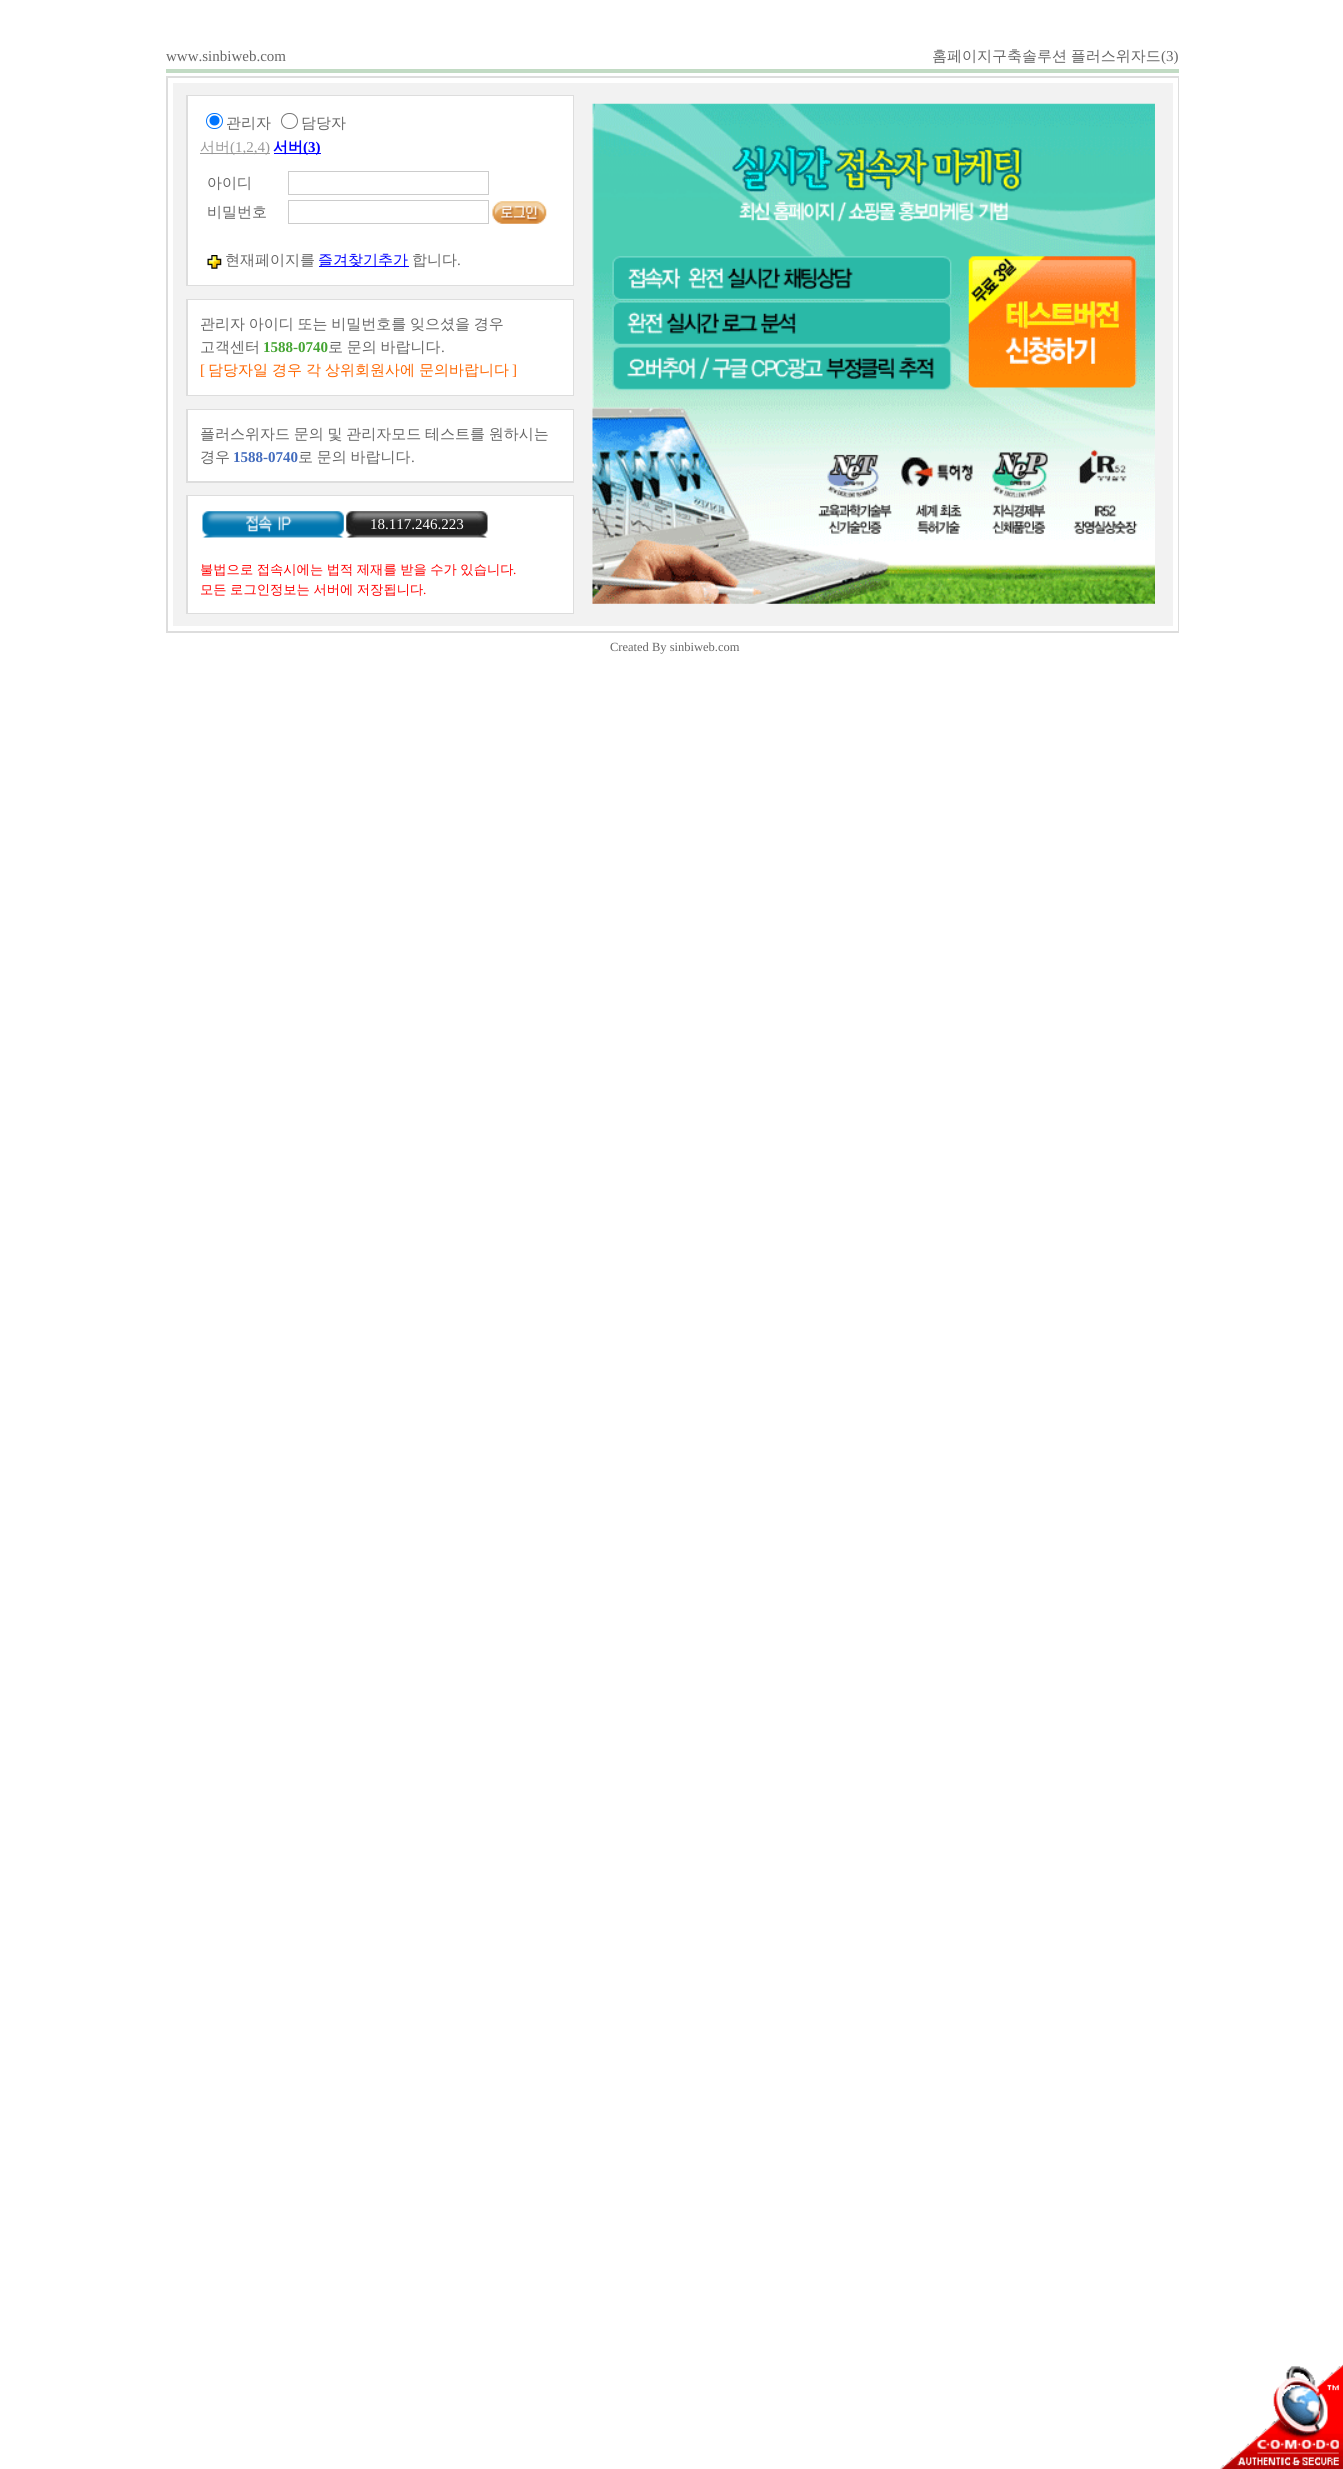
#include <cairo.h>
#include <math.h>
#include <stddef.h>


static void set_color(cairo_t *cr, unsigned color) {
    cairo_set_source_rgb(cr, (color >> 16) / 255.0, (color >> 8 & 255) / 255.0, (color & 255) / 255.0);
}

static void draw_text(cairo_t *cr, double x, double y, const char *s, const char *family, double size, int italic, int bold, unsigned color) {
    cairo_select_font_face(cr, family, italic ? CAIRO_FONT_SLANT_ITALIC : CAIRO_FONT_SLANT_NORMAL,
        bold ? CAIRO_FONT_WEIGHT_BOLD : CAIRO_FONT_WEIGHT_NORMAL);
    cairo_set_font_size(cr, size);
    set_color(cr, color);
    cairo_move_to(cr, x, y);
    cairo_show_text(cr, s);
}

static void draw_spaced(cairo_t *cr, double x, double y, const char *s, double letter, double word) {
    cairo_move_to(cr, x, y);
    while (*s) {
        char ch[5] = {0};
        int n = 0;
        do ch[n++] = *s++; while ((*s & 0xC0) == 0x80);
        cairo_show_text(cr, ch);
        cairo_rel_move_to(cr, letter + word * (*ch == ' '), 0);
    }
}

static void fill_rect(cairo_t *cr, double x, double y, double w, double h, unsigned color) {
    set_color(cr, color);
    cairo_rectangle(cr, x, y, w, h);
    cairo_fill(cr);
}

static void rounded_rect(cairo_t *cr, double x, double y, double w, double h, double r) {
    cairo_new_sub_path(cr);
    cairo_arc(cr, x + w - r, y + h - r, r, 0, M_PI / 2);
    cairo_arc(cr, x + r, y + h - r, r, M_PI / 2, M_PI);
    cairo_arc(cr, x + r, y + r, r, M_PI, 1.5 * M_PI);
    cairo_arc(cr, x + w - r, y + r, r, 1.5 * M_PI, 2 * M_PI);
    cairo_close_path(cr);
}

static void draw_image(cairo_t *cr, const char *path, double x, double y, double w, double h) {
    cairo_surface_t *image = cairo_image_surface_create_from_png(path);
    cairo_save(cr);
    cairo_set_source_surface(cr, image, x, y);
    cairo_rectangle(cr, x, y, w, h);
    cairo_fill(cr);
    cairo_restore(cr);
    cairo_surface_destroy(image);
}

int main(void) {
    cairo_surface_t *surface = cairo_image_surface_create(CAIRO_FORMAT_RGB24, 1343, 2469);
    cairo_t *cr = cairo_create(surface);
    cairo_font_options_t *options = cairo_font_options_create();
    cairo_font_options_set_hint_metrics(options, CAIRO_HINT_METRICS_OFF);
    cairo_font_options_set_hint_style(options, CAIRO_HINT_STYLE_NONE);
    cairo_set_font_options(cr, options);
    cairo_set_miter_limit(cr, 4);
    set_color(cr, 0xFFFFFF);
    cairo_paint(cr);
    draw_text(cr, 166, 61, "www.sinbiweb.com", "Liberation Serif", 15, 0, 0, 0x666666);
    cairo_select_font_face(cr, "WenQuanYi Zen Hei Medium", CAIRO_FONT_SLANT_NORMAL, CAIRO_FONT_WEIGHT_NORMAL);
    draw_spaced(cr, 932, 61, "홈페이지구축솔루션 플러스위자드", 0, -0.75);
    draw_text(cr, 1161, 61, "(3)", "Liberation Serif", 15, 0, 0, 0x666666);
    fill_rect(cr, 166, 69, 1013, 4, 0xC2DBC4);
    fill_rect(cr, 166, 76, 1013, 557, 0xDDDDDD);
    fill_rect(cr, 168, 78, 1010, 553, 0xFFFFFF);
    fill_rect(cr, 173, 83, 1000, 543, 0xF2F2F2);
    fill_rect(cr, 186, 95, 388, 191, 0xDDDDDD);
    fill_rect(cr, 188, 96, 385, 189, 0xFFFFFF);
    rounded_rect(cr, 206.5, 113.5, 16, 15, 7.5);
    set_color(cr, 0x0075FF);
    cairo_set_line_width(cr, 1);
    cairo_stroke(cr);
    cairo_arc(cr, 214.5, 120.5, 5, 0, 2 * M_PI);
    cairo_fill(cr);
    draw_text(cr, 226, 128, "관리자", "WenQuanYi Zen Hei Medium", 15, 0, 0, 0x666666);
    rounded_rect(cr, 281.5, 113.5, 16, 15, 7.5);
    set_color(cr, 0x767676);
    cairo_stroke(cr);
    draw_text(cr, 301, 128, "담당자", "WenQuanYi Zen Hei Medium", 15, 0, 0, 0x666666);
    fill_rect(cr, 200, 153, 70, 1, 0x999999);
    draw_text(cr, 200, 152, "서버", "WenQuanYi Zen Hei Medium", 15, 0, 0, 0x999999);
    draw_text(cr, 230, 152, "(1,2,4)", "Liberation Serif", 15, 0, 0, 0x999999);
    fill_rect(cr, 274, 153, 47, 1, 0x0000FF);
    draw_text(cr, 273, 152, "서버", "WenQuanYi Zen Hei", 15, 0, 1, 0x0000FF);
    draw_text(cr, 303, 152, "(3)", "Liberation Serif", 15, 0, 1, 0x0000FF);
    draw_text(cr, 207, 188, "아이디", "WenQuanYi Zen Hei Medium", 15, 0, 0, 0x666666);
    cairo_rectangle(cr, 288.5, 171.5, 200, 23);
    set_color(cr, 0xCCCCCC);
    cairo_stroke(cr);
    draw_text(cr, 207, 217, "비밀번호", "WenQuanYi Zen Hei Medium", 15, 0, 0, 0x666666);
    cairo_rectangle(cr, 288.5, 200.5, 200, 23);
    set_color(cr, 0xCCCCCC);
    cairo_stroke(cr);
    draw_image(cr, "assets/img1.png", 492, 201, 55, 23);
    draw_image(cr, "assets/img2.png", 207, 255, 15, 14);
    draw_text(cr, 225, 265, "현재페이지를", "WenQuanYi Zen Hei Medium", 15, 0, 0, 0x666666);
    fill_rect(cr, 319, 266, 90, 1, 0x0000FF);
    draw_text(cr, 318, 265, "즐겨찾기추가", "WenQuanYi Zen Hei Medium", 15, 0, 0, 0x0000FF);
    draw_text(cr, 412, 265, "합니다", "WenQuanYi Zen Hei Medium", 15, 0, 0, 0x666666);
    draw_text(cr, 457, 265, ".", "Liberation Serif", 15, 0, 0, 0x666666);
    fill_rect(cr, 186, 299, 388, 97, 0xDDDDDD);
    fill_rect(cr, 188, 300, 385, 95, 0xFFFFFF);
    cairo_select_font_face(cr, "WenQuanYi Zen Hei Medium", CAIRO_FONT_SLANT_NORMAL, CAIRO_FONT_WEIGHT_NORMAL);
    set_color(cr, 0x666666);
    draw_spaced(cr, 200, 329, "관리자 아이디 또는 비밀번호를 잊으셨을 경우", 0, -0.75);
    draw_text(cr, 200, 352, "고객센터", "WenQuanYi Zen Hei Medium", 15, 0, 0, 0x666666);
    draw_text(cr, 263, 352, "1588-0740", "Liberation Serif", 15, 0, 1, 0x44A432);
    cairo_select_font_face(cr, "WenQuanYi Zen Hei Medium", CAIRO_FONT_SLANT_NORMAL, CAIRO_FONT_WEIGHT_NORMAL);
    set_color(cr, 0x666666);
    draw_spaced(cr, 328, 352, "로 문의 바랍니다", 0, -0.75);
    draw_text(cr, 441, 352, ".", "Liberation Serif", 15, 0, 0, 0x666666);
    draw_text(cr, 200, 375, "[", "Liberation Serif", 15, 0, 0, 0xFF6600);
    cairo_select_font_face(cr, "WenQuanYi Zen Hei Medium", CAIRO_FONT_SLANT_NORMAL, CAIRO_FONT_WEIGHT_NORMAL);
    draw_spaced(cr, 208, 375, "담당자일 경우 각 상위회원사에 문의바랍니다", 0, -0.5);
    draw_text(cr, 512, 375, "]", "Liberation Serif", 15, 0, 0, 0xFF6600);
    fill_rect(cr, 186, 409, 388, 74, 0xDDDDDD);
    fill_rect(cr, 188, 410, 385, 71, 0xFFFFFF);
    cairo_select_font_face(cr, "WenQuanYi Zen Hei Medium", CAIRO_FONT_SLANT_NORMAL, CAIRO_FONT_WEIGHT_NORMAL);
    set_color(cr, 0x666666);
    draw_spaced(cr, 200, 439, "플러스위자드 문의 및 관리자모드 테스트를 원하시는", 0, -0.75);
    draw_text(cr, 200, 462, "경우", "WenQuanYi Zen Hei Medium", 15, 0, 0, 0x666666);
    draw_text(cr, 233, 462, "1588-0740", "Liberation Serif", 15, 0, 1, 0x426BBD);
    cairo_select_font_face(cr, "WenQuanYi Zen Hei Medium", CAIRO_FONT_SLANT_NORMAL, CAIRO_FONT_WEIGHT_NORMAL);
    set_color(cr, 0x666666);
    draw_spaced(cr, 298, 462, "로 문의 바랍니다", 0, -0.75);
    draw_text(cr, 411, 462, ".", "Liberation Serif", 15, 0, 0, 0x666666);
    fill_rect(cr, 186, 495, 388, 119, 0xDDDDDD);
    fill_rect(cr, 188, 496, 385, 117, 0xFFFFFF);
    draw_image(cr, "assets/img3.png", 202, 511, 142, 27);
    draw_image(cr, "assets/img4.png", 346, 511, 142, 27);
    draw_text(cr, 370, 529, "18.117.246.223", "Liberation Serif", 15, 0, 0, 0xFFFFFF);
    cairo_select_font_face(cr, "WenQuanYi Zen Hei Medium", CAIRO_FONT_SLANT_NORMAL, CAIRO_FONT_WEIGHT_NORMAL);
    cairo_set_font_size(cr, 13.3);
    set_color(cr, 0xFF0000);
    draw_spaced(cr, 200, 574, "불법으로 접속시에는 법적 제재를 받을 수가 있습니다", 0, -0.5);
    draw_text(cr, 513, 574, ".", "Liberation Serif", 13.3, 0, 0, 0xFF0000);
    cairo_select_font_face(cr, "WenQuanYi Zen Hei Medium", CAIRO_FONT_SLANT_NORMAL, CAIRO_FONT_WEIGHT_NORMAL);
    draw_spaced(cr, 200, 594, "모든 로그인정보는 서버에 저장됩니다", 0, -0.5);
    draw_text(cr, 423, 594, ".", "Liberation Serif", 13.3, 0, 0, 0xFF0000);
    draw_image(cr, "assets/img5.png", 592, 103, 563, 501);
    draw_text(cr, 610, 651, "Created By sinbiweb.com", "Liberation Serif", 12.5, 0, 0, 0x666666);
    draw_image(cr, "assets/img6.png", 1220, 2364, 123, 105);
    cairo_surface_write_to_png(surface, "output.png");
    cairo_font_options_destroy(options);
    cairo_destroy(cr);
    cairo_surface_destroy(surface);
    return 0;
}
